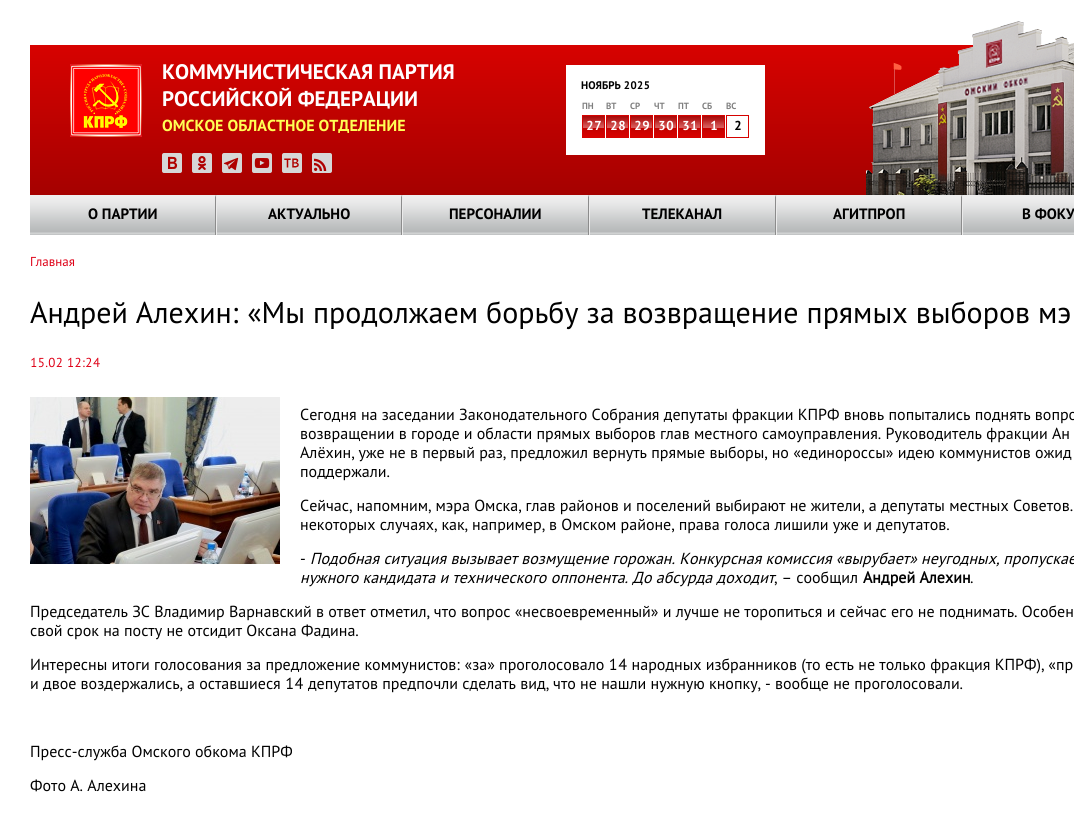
#include <cairo.h>
#include <math.h>
#include <stddef.h>


static void set_color(cairo_t *cr, unsigned color) {
    cairo_set_source_rgb(cr, (color >> 16) / 255.0, (color >> 8 & 255) / 255.0, (color & 255) / 255.0);
}

static void draw_text(cairo_t *cr, double x, double y, const char *s, const char *family, double size, int italic, int bold, unsigned color) {
    cairo_select_font_face(cr, family, italic ? CAIRO_FONT_SLANT_ITALIC : CAIRO_FONT_SLANT_NORMAL,
        bold ? CAIRO_FONT_WEIGHT_BOLD : CAIRO_FONT_WEIGHT_NORMAL);
    cairo_set_font_size(cr, size);
    set_color(cr, color);
    cairo_move_to(cr, x, y);
    cairo_show_text(cr, s);
}

static void fill_rect(cairo_t *cr, double x, double y, double w, double h, unsigned color) {
    set_color(cr, color);
    cairo_rectangle(cr, x, y, w, h);
    cairo_fill(cr);
}

static void draw_image(cairo_t *cr, const char *path, double x, double y, double w, double h) {
    cairo_surface_t *image = cairo_image_surface_create_from_png(path);
    cairo_save(cr);
    cairo_set_source_surface(cr, image, x, y);
    cairo_rectangle(cr, x, y, w, h);
    cairo_fill(cr);
    cairo_restore(cr);
    cairo_surface_destroy(image);
}

int main(void) {
    cairo_surface_t *surface = cairo_image_surface_create(CAIRO_FORMAT_RGB24, 1074, 824);
    cairo_t *cr = cairo_create(surface);
    cairo_font_options_t *options = cairo_font_options_create();
    cairo_font_options_set_hint_metrics(options, CAIRO_HINT_METRICS_OFF);
    cairo_font_options_set_hint_style(options, CAIRO_HINT_STYLE_NONE);
    cairo_set_font_options(cr, options);
    cairo_set_miter_limit(cr, 4);
    cairo_pattern_t *gradient;
    set_color(cr, 0xFFFFFF);
    cairo_paint(cr);
    gradient = cairo_pattern_create_linear(590, 195, 590, 45);
    cairo_pattern_add_color_stop_rgba(gradient, 0, 0.647, 0.004, 0, 1);
    cairo_pattern_add_color_stop_rgba(gradient, 1, 0.843, 0.008, 0, 1);
    cairo_set_source(cr, gradient);
    cairo_pattern_destroy(gradient);
    cairo_rectangle(cr, 30, 45, 1012, 150);
    cairo_fill(cr);
    draw_image(cr, "assets/img1.png", 70, 64, 72, 73);
    draw_text(cr, 162, 79, "КОММУНИСТИЧЕСКАЯ ПАРТИЯ", "PT Sans", 21, 0, 1, 0xFFFFFF);
    draw_text(cr, 162, 106, "РОССИЙСКОЙ ФЕДЕРАЦИИ", "PT Sans", 21, 0, 1, 0xFFFFFF);
    draw_text(cr, 162, 131, "ОМСКОЕ ОБЛАСТНОЕ ОТДЕЛЕНИЕ", "PT Sans", 16, 0, 1, 0xFFFF54);
    draw_image(cr, "assets/img2.png", 162, 153, 20, 20);
    draw_image(cr, "assets/img3.png", 192, 153, 20, 20);
    draw_image(cr, "assets/img4.png", 222, 153, 20, 20);
    draw_image(cr, "assets/img5.png", 252, 153, 20, 20);
    draw_image(cr, "assets/img6.png", 282, 153, 20, 20);
    draw_image(cr, "assets/img7.png", 312, 153, 20, 20);
    fill_rect(cr, 566, 65, 199, 90, 0xFFFFFF);
    draw_text(cr, 581, 89, "НОЯБРЬ 2025", "PT Sans", 11, 0, 1, 0x000000);
    draw_text(cr, 582, 109, "ПН", "PT Sans", 9, 0, 1, 0x808080);
    draw_text(cr, 606, 109, "ВТ", "PT Sans", 9, 0, 1, 0x808080);
    draw_text(cr, 630, 109, "СР", "PT Sans", 9, 0, 1, 0x808080);
    draw_text(cr, 654, 109, "ЧТ", "PT Sans", 9, 0, 1, 0x808080);
    draw_text(cr, 678, 109, "ПТ", "PT Sans", 9, 0, 1, 0x808080);
    draw_text(cr, 702, 109, "СБ", "PT Sans", 9, 0, 1, 0x808080);
    draw_text(cr, 726, 109, "ВС", "PT Sans", 9, 0, 1, 0x808080);
    draw_image(cr, "assets/img8.png", 583, 116, 21, 21);
    cairo_rectangle(cr, 582.5, 115.5, 22, 22);
    set_color(cr, 0xD60200);
    cairo_set_line_width(cr, 1);
    cairo_stroke(cr);
    draw_text(cr, 586, 130, "27", "PT Sans", 13, 0, 1, 0xFFFFFF);
    draw_image(cr, "assets/img8.png", 607, 116, 21, 21);
    cairo_rectangle(cr, 606.5, 115.5, 22, 22);
    set_color(cr, 0xD60200);
    cairo_stroke(cr);
    draw_text(cr, 610, 130, "28", "PT Sans", 13, 0, 1, 0xFFFFFF);
    draw_image(cr, "assets/img8.png", 631, 116, 21, 21);
    cairo_rectangle(cr, 630.5, 115.5, 22, 22);
    set_color(cr, 0xD60200);
    cairo_stroke(cr);
    draw_text(cr, 634, 130, "29", "PT Sans", 13, 0, 1, 0xFFFFFF);
    draw_image(cr, "assets/img8.png", 655, 116, 21, 21);
    cairo_rectangle(cr, 654.5, 115.5, 22, 22);
    set_color(cr, 0xD60200);
    cairo_stroke(cr);
    draw_text(cr, 658, 130, "30", "PT Sans", 13, 0, 1, 0xFFFFFF);
    draw_image(cr, "assets/img8.png", 679, 116, 21, 21);
    cairo_rectangle(cr, 678.5, 115.5, 22, 22);
    set_color(cr, 0xD60200);
    cairo_stroke(cr);
    draw_text(cr, 682, 130, "31", "PT Sans", 13, 0, 1, 0xFFFFFF);
    draw_image(cr, "assets/img8.png", 703, 116, 21, 21);
    cairo_rectangle(cr, 702.5, 115.5, 22, 22);
    set_color(cr, 0xD60200);
    cairo_stroke(cr);
    draw_text(cr, 710, 130, "1", "PT Sans", 13, 0, 1, 0xFFFFFF);
    cairo_rectangle(cr, 726.5, 115.5, 22, 22);
    set_color(cr, 0xD60200);
    cairo_stroke(cr);
    draw_text(cr, 734, 130, "2", "PT Sans", 13, 0, 1, 0x000000);
    draw_image(cr, "assets/img9.png", 866, 21, 208, 174);
    draw_image(cr, "assets/img10.png", 30, 195, 186, 40);
    set_color(cr, 0xEEEEEE);
    cairo_new_path(cr);
    cairo_move_to(cr, 30, 195);
    cairo_line_to(cr, 216, 195);
    cairo_line_to(cr, 215, 197);
    cairo_line_to(cr, 30, 197);
    cairo_close_path(cr);
    cairo_fill(cr);
    set_color(cr, 0x8C8C8C);
    cairo_new_path(cr);
    cairo_move_to(cr, 216, 195);
    cairo_line_to(cr, 216, 235);
    cairo_line_to(cr, 215, 235);
    cairo_line_to(cr, 215, 197);
    cairo_close_path(cr);
    cairo_fill(cr);
    draw_text(cr, 88, 219, "О ПАРТИИ", "PT Sans", 15, 0, 1, 0x000000);
    draw_image(cr, "assets/img10.png", 216, 195, 186, 40);
    set_color(cr, 0xEEEEEE);
    cairo_new_path(cr);
    cairo_move_to(cr, 216, 195);
    cairo_line_to(cr, 402, 195);
    cairo_line_to(cr, 401, 197);
    cairo_line_to(cr, 217, 197);
    cairo_close_path(cr);
    cairo_fill(cr);
    set_color(cr, 0x8C8C8C);
    cairo_new_path(cr);
    cairo_move_to(cr, 402, 195);
    cairo_line_to(cr, 402, 235);
    cairo_line_to(cr, 401, 235);
    cairo_line_to(cr, 401, 197);
    cairo_close_path(cr);
    cairo_fill(cr);
    set_color(cr, 0xEBEBEB);
    cairo_new_path(cr);
    cairo_move_to(cr, 216, 235);
    cairo_line_to(cr, 216, 195);
    cairo_line_to(cr, 217, 197);
    cairo_line_to(cr, 217, 235);
    cairo_close_path(cr);
    cairo_fill(cr);
    draw_text(cr, 268, 219, "АКТУАЛЬНО", "PT Sans", 15, 0, 1, 0x000000);
    draw_image(cr, "assets/img11.png", 402, 195, 187, 40);
    set_color(cr, 0xEEEEEE);
    cairo_new_path(cr);
    cairo_move_to(cr, 402, 195);
    cairo_line_to(cr, 589, 195);
    cairo_line_to(cr, 588, 197);
    cairo_line_to(cr, 403, 197);
    cairo_close_path(cr);
    cairo_fill(cr);
    set_color(cr, 0x8C8C8C);
    cairo_new_path(cr);
    cairo_move_to(cr, 589, 195);
    cairo_line_to(cr, 589, 235);
    cairo_line_to(cr, 588, 235);
    cairo_line_to(cr, 588, 197);
    cairo_close_path(cr);
    cairo_fill(cr);
    set_color(cr, 0xEBEBEB);
    cairo_new_path(cr);
    cairo_move_to(cr, 402, 235);
    cairo_line_to(cr, 402, 195);
    cairo_line_to(cr, 403, 197);
    cairo_line_to(cr, 403, 235);
    cairo_close_path(cr);
    cairo_fill(cr);
    draw_text(cr, 449, 219, "ПЕРСОНАЛИИ", "PT Sans", 15, 0, 1, 0x000000);
    draw_image(cr, "assets/img11.png", 589, 195, 187, 40);
    set_color(cr, 0xEEEEEE);
    cairo_new_path(cr);
    cairo_move_to(cr, 589, 195);
    cairo_line_to(cr, 776, 195);
    cairo_line_to(cr, 775, 197);
    cairo_line_to(cr, 590, 197);
    cairo_close_path(cr);
    cairo_fill(cr);
    set_color(cr, 0x8C8C8C);
    cairo_new_path(cr);
    cairo_move_to(cr, 776, 195);
    cairo_line_to(cr, 776, 235);
    cairo_line_to(cr, 775, 235);
    cairo_line_to(cr, 775, 197);
    cairo_close_path(cr);
    cairo_fill(cr);
    set_color(cr, 0xEBEBEB);
    cairo_new_path(cr);
    cairo_move_to(cr, 589, 235);
    cairo_line_to(cr, 589, 195);
    cairo_line_to(cr, 590, 197);
    cairo_line_to(cr, 590, 235);
    cairo_close_path(cr);
    cairo_fill(cr);
    draw_text(cr, 642, 219, "ТЕЛЕКАНАЛ", "PT Sans", 15, 0, 1, 0x000000);
    draw_image(cr, "assets/img10.png", 776, 195, 186, 40);
    set_color(cr, 0xEEEEEE);
    cairo_new_path(cr);
    cairo_move_to(cr, 776, 195);
    cairo_line_to(cr, 962, 195);
    cairo_line_to(cr, 961, 197);
    cairo_line_to(cr, 777, 197);
    cairo_close_path(cr);
    cairo_fill(cr);
    set_color(cr, 0x8C8C8C);
    cairo_new_path(cr);
    cairo_move_to(cr, 962, 195);
    cairo_line_to(cr, 962, 235);
    cairo_line_to(cr, 961, 235);
    cairo_line_to(cr, 961, 197);
    cairo_close_path(cr);
    cairo_fill(cr);
    set_color(cr, 0xEBEBEB);
    cairo_new_path(cr);
    cairo_move_to(cr, 776, 235);
    cairo_line_to(cr, 776, 195);
    cairo_line_to(cr, 777, 197);
    cairo_line_to(cr, 777, 235);
    cairo_close_path(cr);
    cairo_fill(cr);
    draw_text(cr, 833, 219, "АГИТПРОП", "PT Sans", 15, 0, 1, 0x000000);
    draw_image(cr, "assets/img12.png", 962, 195, 112, 40);
    set_color(cr, 0xEEEEEE);
    cairo_new_path(cr);
    cairo_move_to(cr, 962, 195);
    cairo_line_to(cr, 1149, 195);
    cairo_line_to(cr, 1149, 197);
    cairo_line_to(cr, 963, 197);
    cairo_close_path(cr);
    cairo_fill(cr);
    set_color(cr, 0xEBEBEB);
    cairo_new_path(cr);
    cairo_move_to(cr, 962, 235);
    cairo_line_to(cr, 962, 195);
    cairo_line_to(cr, 963, 197);
    cairo_line_to(cr, 963, 235);
    cairo_close_path(cr);
    cairo_fill(cr);
    draw_text(cr, 1022, 219, "В ФОКУ", "PT Sans", 15, 0, 1, 0x000000);
    draw_text(cr, 30, 266, "Главная", "PT Sans", 13, 0, 0, 0xDE0016);
    draw_text(cr, 30, 323, "Андрей Алехин: «Мы продолжаем борьбу за возвращение прямых выборов мэ", "PT Sans", 30, 0, 0, 0x000000);
    draw_text(cr, 30, 367, "15.02 12:24", "PT Sans", 13, 0, 0, 0xDE0016);
    draw_image(cr, "assets/img13.png", 30, 397, 250, 167);
    draw_text(cr, 300, 420, "Сегодня на заседании Законодательного Собрания депутаты фракции КПРФ вновь попытались поднять вопро", "PT Sans", 16, 0, 0, 0x000000);
    draw_text(cr, 300, 439, "возвращении в городе и области прямых выборов глав местного самоуправления. Руководитель фракции Ан", "PT Sans", 16, 0, 0, 0x000000);
    draw_text(cr, 300, 458, "Алёхин, уже не в первый раз, предложил вернуть прямые выборы, но «единороссы» идею коммунистов ожид", "PT Sans", 16, 0, 0, 0x000000);
    draw_text(cr, 300, 477, "поддержали.", "PT Sans", 16, 0, 0, 0x000000);
    draw_text(cr, 300, 511, "Сейчас, напомним, мэра Омска, глав районов и поселений выбирают не жители, а депутаты местных Советов.", "PT Sans", 16, 0, 0, 0x000000);
    draw_text(cr, 300, 530, "некоторых случаях, как, например, в Омском районе, права голоса лишили уже и депутатов.", "PT Sans", 16, 0, 0, 0x000000);
    draw_text(cr, 300, 564, "-", "PT Sans", 16, 0, 0, 0x000000);
    draw_text(cr, 310, 564, "Подобная ситуация вызывает возмущение горожан. Конкурсная комиссия «вырубает» неугодных, пропускае", "PT Sans", 16, 1, 0, 0x000000);
    draw_text(cr, 300, 583, "нужного кандидата и технического оппонента. До абсурда доходит", "PT Sans", 16, 1, 0, 0x000000);
    draw_text(cr, 774, 583, ", – сообщил", "PT Sans", 16, 0, 0, 0x000000);
    draw_text(cr, 863, 583, "Андрей Алехин", "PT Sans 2", 16, 0, 1, 0x000000);
    draw_text(cr, 970, 583, ".", "PT Sans", 16, 0, 0, 0x000000);
    draw_text(cr, 30, 617, "Председатель ЗС Владимир Варнавский в ответ отметил, что вопрос «несвоевременный» и лучше не торопиться и сейчас его не поднимать. Особен", "PT Sans", 16, 0, 0, 0x000000);
    draw_text(cr, 30, 636, "свой срок на посту не отсидит Оксана Фадина.", "PT Sans", 16, 0, 0, 0x000000);
    draw_text(cr, 30, 670, "Интересны итоги голосования за предложение коммунистов: «за» проголосовало 14 народных избранников (то есть не только фракция КПРФ), «пр", "PT Sans", 16, 0, 0, 0x000000);
    draw_text(cr, 30, 689, "и двое воздержались, а оставшиеся 14 депутатов предпочли сделать вид, что не нашли нужную кнопку, - вообще не проголосовали.", "PT Sans", 16, 0, 0, 0x000000);
    draw_text(cr, 30, 757, "Пресс-служба Омского обкома КПРФ", "PT Sans", 16, 0, 0, 0x000000);
    draw_text(cr, 30, 791, "Фото А. Алехина", "PT Sans", 16, 0, 0, 0x000000);
    cairo_surface_write_to_png(surface, "output.png");
    cairo_font_options_destroy(options);
    cairo_destroy(cr);
    cairo_surface_destroy(surface);
    return 0;
}
